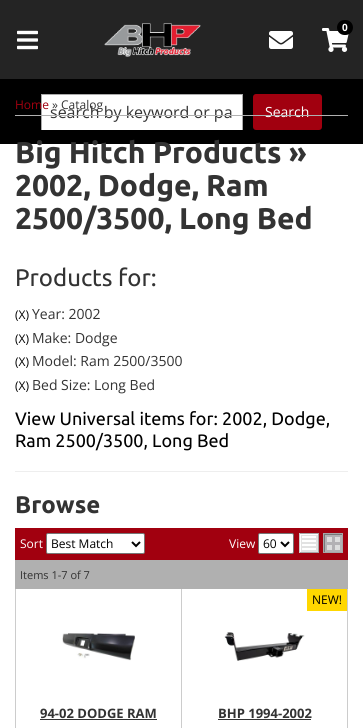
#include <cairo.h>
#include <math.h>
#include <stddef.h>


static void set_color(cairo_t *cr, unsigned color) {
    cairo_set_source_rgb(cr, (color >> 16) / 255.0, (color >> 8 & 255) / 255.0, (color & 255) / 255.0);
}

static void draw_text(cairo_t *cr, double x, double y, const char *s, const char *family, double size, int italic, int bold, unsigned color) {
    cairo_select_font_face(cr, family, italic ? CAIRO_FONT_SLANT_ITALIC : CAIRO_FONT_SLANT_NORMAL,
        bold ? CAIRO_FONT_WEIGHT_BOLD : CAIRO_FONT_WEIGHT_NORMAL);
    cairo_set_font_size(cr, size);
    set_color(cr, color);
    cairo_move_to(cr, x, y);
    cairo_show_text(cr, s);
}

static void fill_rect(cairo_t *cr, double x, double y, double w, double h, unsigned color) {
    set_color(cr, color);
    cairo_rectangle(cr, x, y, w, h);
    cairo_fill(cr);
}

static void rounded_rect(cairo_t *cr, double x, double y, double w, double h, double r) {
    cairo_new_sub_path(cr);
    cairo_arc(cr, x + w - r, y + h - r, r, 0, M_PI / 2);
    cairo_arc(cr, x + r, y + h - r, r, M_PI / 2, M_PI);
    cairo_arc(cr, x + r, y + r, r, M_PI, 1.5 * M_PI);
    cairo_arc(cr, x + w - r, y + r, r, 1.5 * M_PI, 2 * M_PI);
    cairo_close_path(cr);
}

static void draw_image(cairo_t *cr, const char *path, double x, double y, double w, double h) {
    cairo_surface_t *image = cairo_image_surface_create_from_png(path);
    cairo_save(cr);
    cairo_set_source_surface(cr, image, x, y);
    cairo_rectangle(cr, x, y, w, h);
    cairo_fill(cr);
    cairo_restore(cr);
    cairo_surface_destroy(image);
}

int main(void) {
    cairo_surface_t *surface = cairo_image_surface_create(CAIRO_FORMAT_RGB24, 363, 728);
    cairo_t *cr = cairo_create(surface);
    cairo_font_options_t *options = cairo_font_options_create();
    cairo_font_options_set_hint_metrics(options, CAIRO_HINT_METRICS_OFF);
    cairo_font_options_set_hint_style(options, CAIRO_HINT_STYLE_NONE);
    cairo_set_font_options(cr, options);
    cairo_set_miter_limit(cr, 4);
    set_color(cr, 0xFFFFFF);
    cairo_paint(cr);
    fill_rect(cr, 0, 0, 363, 79, 0x242424);
    draw_image(cr, "assets/img1.png", 104, 23, 97, 34);
    draw_image(cr, "assets/img2.png", 322, 28, 27, 24);
    set_color(cr, 0x000000);
    rounded_rect(cr, 337, 20, 16, 15, 7.5);
    cairo_fill(cr);
    draw_text(cr, 342, 31, "0", "Open Sans", 10, 0, 1, 0xFFFFFF);
    draw_image(cr, "assets/img3.png", 17, 30, 21, 20);
    draw_image(cr, "assets/img4.png", 269, 31, 24, 18);
    fill_rect(cr, 0, 79, 363, 65, 0x000000);
    cairo_rectangle(cr, 41.5, 94.5, 201, 35);
    set_color(cr, 0xAAAAAA);
    cairo_set_line_width(cr, 1);
    cairo_stroke(cr);
    fill_rect(cr, 42, 95, 200, 35, 0xFFFFFF);
    draw_text(cr, 50, 118, "search by keyword or pa", "Open Sans", 16, 0, 0, 0x333333);
    set_color(cr, 0xA1000F);
    rounded_rect(cr, 253, 94, 69, 36, 3);
    cairo_fill(cr);
    draw_text(cr, 265, 117, "Search", "Open Sans", 14, 0, 0, 0xFFFFFF);
    fill_rect(cr, 15, 115, 333, 1, 0xB0B0B0);
    draw_text(cr, 15, 109, "Home", "Open Sans", 12, 0, 0, 0xA1000F);
    draw_text(cr, 52, 109, "» Catalog", "Open Sans", 12, 0, 0, 0x333333);
    draw_text(cr, 15, 163, "Big Hitch Products »", "Ubuntu", 30, 0, 1, 0x333333);
    draw_text(cr, 15, 196, "2002, Dodge, Ram", "Ubuntu", 30, 0, 1, 0x333333);
    draw_text(cr, 15, 229, "2500/3500, Long Bed", "Ubuntu", 30, 0, 1, 0x333333);
    draw_text(cr, 15, 286, "Products for:", "Ubuntu", 24, 0, 0, 0x333333);
    draw_text(cr, 15, 319, "(X)", "Open Sans", 12, 0, 0, 0x000000);
    draw_text(cr, 32, 319, "Year: 2002", "Open Sans", 14, 0, 0, 0x333333);
    draw_text(cr, 15, 343, "(X)", "Open Sans", 12, 0, 0, 0x000000);
    draw_text(cr, 32, 343, "Make: Dodge", "Open Sans", 14, 0, 0, 0x333333);
    draw_text(cr, 15, 366, "(X)", "Open Sans", 12, 0, 0, 0x000000);
    draw_text(cr, 32, 366, "Model: Ram 2500/3500", "Open Sans", 14, 0, 0, 0x333333);
    draw_text(cr, 15, 390, "(X)", "Open Sans", 12, 0, 0, 0x000000);
    draw_text(cr, 32, 390, "Bed Size: Long Bed", "Open Sans", 14, 0, 0, 0x333333);
    draw_text(cr, 15, 425, "View Universal items for: 2002, Dodge,", "Ubuntu", 18, 0, 0, 0x000000);
    draw_text(cr, 15, 447, "Ram 2500/3500, Long Bed", "Ubuntu", 18, 0, 0, 0x000000);
    fill_rect(cr, 15, 471, 333, 1, 0xEEEEEE);
    draw_text(cr, 15, 513, "Browse", "Ubuntu", 24, 0, 1, 0x333333);
    fill_rect(cr, 15, 528, 333, 32, 0xA1000F);
    fill_rect(cr, 15, 560, 333, 29, 0xB0B0B0);
    draw_text(cr, 20, 548, "Sort", "Open Sans", 12, 0, 0, 0xFFFFFF);
    rounded_rect(cr, 46.5, 533.5, 98, 20, 1.5);
    cairo_fill_preserve(cr);
    set_color(cr, 0x767676);
    cairo_stroke(cr);
    cairo_new_path(cr);
    cairo_move_to(cr, 132, 542);
    cairo_line_to(cr, 136, 546);
    cairo_line_to(cr, 140, 542);
    set_color(cr, 0x000000);
    cairo_set_line_width(cr, 2);
    cairo_stroke(cr);
    draw_text(cr, 51, 548, "Best Match", "Open Sans", 12, 0, 0, 0x000000);
    draw_text(cr, 229, 548, "View", "Open Sans", 12, 0, 0, 0xFFFFFF);
    rounded_rect(cr, 258.5, 533.5, 35, 20, 1.5);
    cairo_fill_preserve(cr);
    set_color(cr, 0x767676);
    cairo_set_line_width(cr, 1);
    cairo_stroke(cr);
    cairo_new_path(cr);
    cairo_move_to(cr, 281, 542);
    cairo_line_to(cr, 285, 546);
    cairo_line_to(cr, 289, 542);
    set_color(cr, 0x000000);
    cairo_set_line_width(cr, 2);
    cairo_stroke(cr);
    draw_text(cr, 263, 548, "60", "Open Sans", 12, 0, 0, 0x000000);
    draw_image(cr, "assets/img5.png", 300, 533, 43, 20);
    fill_rect(cr, 299, 533, 1, 20, 0xCCCCCC);
    draw_text(cr, 20, 579, "Items 1-7 of 7", "Open Sans", 11, 0, 0, 0x333333);
    fill_rect(cr, 15, 589, 1, 139, 0xCCCCCC);
    fill_rect(cr, 181, 589, 1, 139, 0xCCCCCC);
    draw_image(cr, "assets/img6.png", 62, 633, 73, 28);
    draw_text(cr, 40, 718, "94-02 DODGE RAM", "Open Sans", 13, 0, 1, 0x333333);
    fill_rect(cr, 40, 719, 117, 1, 0x333333);
    fill_rect(cr, 347, 589, 1, 139, 0xCCCCCC);
    fill_rect(cr, 307, 589, 40, 22, 0xFFD700);
    draw_text(cr, 312, 604, "NEW!", "Open Sans", 12, 0, 0, 0x000000);
    draw_text(cr, 218, 718, "BHP 1994-2002", "Open Sans", 13, 0, 1, 0x333333);
    fill_rect(cr, 218, 719, 93, 1, 0x333333);
    draw_image(cr, "assets/img7.png", 224, 632, 81, 29);
    cairo_surface_write_to_png(surface, "output.png");
    cairo_font_options_destroy(options);
    cairo_destroy(cr);
    cairo_surface_destroy(surface);
    return 0;
}
